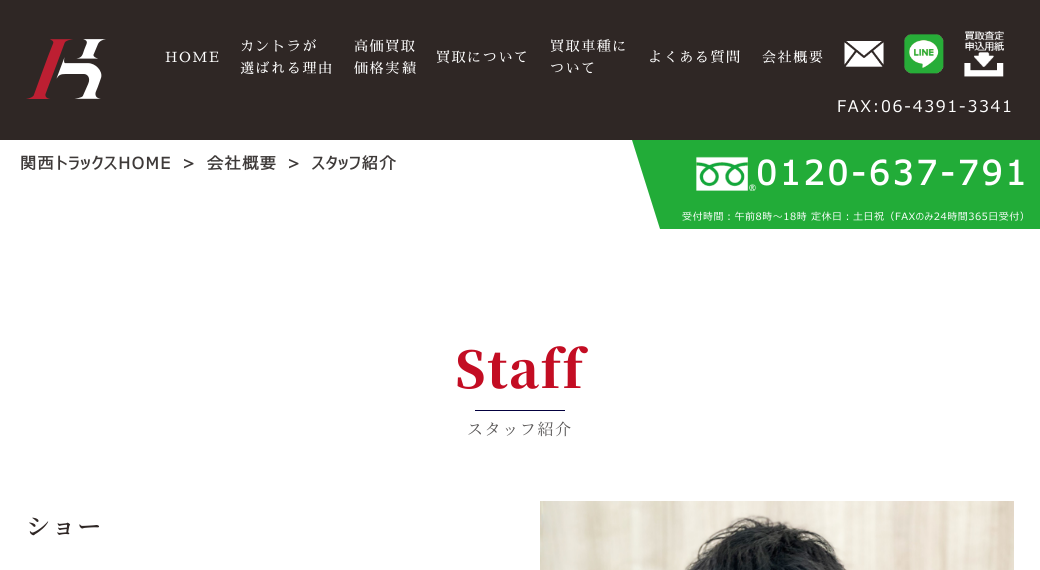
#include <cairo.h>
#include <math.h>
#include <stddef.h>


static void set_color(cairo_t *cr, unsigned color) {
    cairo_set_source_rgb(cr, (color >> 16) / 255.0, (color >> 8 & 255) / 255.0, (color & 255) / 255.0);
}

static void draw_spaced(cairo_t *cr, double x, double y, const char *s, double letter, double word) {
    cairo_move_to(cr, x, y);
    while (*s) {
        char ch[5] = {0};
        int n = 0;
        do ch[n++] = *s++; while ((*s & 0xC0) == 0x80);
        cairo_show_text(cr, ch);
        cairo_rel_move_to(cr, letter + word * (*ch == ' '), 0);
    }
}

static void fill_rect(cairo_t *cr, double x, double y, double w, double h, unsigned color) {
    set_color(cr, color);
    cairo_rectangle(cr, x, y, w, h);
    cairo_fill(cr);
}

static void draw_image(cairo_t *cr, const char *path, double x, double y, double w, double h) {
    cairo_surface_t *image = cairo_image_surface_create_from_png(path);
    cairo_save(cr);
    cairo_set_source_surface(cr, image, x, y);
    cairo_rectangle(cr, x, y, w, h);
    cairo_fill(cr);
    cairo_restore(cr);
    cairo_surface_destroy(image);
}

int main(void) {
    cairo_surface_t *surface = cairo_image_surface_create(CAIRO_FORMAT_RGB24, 1040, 570);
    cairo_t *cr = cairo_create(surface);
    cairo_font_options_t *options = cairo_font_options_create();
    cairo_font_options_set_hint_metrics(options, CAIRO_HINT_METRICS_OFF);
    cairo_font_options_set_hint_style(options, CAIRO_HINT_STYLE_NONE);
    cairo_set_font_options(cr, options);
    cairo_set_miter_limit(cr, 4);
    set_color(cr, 0xFFFFFF);
    cairo_paint(cr);
    fill_rect(cr, 0, 0, 1040, 140, 0x2F2725);
    draw_image(cr, "assets/img1.png", 26, 39, 80, 60);
    cairo_select_font_face(cr, "Sawarabi Mincho", CAIRO_FONT_SLANT_NORMAL, CAIRO_FONT_WEIGHT_NORMAL);
    cairo_set_font_size(cr, 14);
    set_color(cr, 0xFFFFFF);
    draw_spaced(cr, 165, 62, "HOME", 1.6, 0);
    draw_spaced(cr, 240, 51, "カントラが", 1.6, 0);
    draw_spaced(cr, 240, 73, "選ばれる理由", 1.6, 0);
    draw_spaced(cr, 354, 51, "高価買取", 1.6, 0);
    draw_spaced(cr, 354, 73, "価格実績", 1.6, 0);
    draw_spaced(cr, 436, 62, "買取について", 1.6, 0);
    draw_spaced(cr, 550, 51, "買取車種に", 1.6, 0);
    draw_spaced(cr, 550, 73, "ついて", 1.6, 0);
    draw_spaced(cr, 648, 62, "よくある質問", 1.6, 0);
    draw_spaced(cr, 762, 62, "会社概要", 1.6, 0);
    draw_image(cr, "assets/img2.png", 844, 41, 40, 26);
    draw_image(cr, "assets/img3.png", 904, 34, 40, 40);
    draw_image(cr, "assets/img4.png", 964, 31, 40, 46);
    cairo_select_font_face(cr, "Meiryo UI", CAIRO_FONT_SLANT_NORMAL, CAIRO_FONT_WEIGHT_NORMAL);
    cairo_set_font_size(cr, 16);
    draw_spaced(cr, 837, 112, "FAX:06-4391-3341", 1.6, 0);
    cairo_select_font_face(cr, "Meiryo UI", CAIRO_FONT_SLANT_NORMAL, CAIRO_FONT_WEIGHT_BOLD);
    set_color(cr, 0x3E3A39);
    draw_spaced(cr, 20, 169, "関西トラックスHOME", 1.6, 0);
    draw_spaced(cr, 182, 169, ">", 1.6, 0);
    draw_spaced(cr, 207, 169, "会社概要", 1.6, 0);
    draw_spaced(cr, 287, 169, ">", 1.6, 0);
    draw_spaced(cr, 312, 169, "スタッフ紹介", 1.6, 0);
    cairo_select_font_face(cr, "Noto Serif JP Black", CAIRO_FONT_SLANT_NORMAL, CAIRO_FONT_WEIGHT_NORMAL);
    cairo_set_font_size(cr, 50);
    set_color(cr, 0xC30D23);
    draw_spaced(cr, 455, 388, "Staff", 1.6, 0);
    fill_rect(cr, 475, 410, 90, 1, 0x03003F);
    cairo_select_font_face(cr, "Noto Serif JP", CAIRO_FONT_SLANT_NORMAL, CAIRO_FONT_WEIGHT_NORMAL);
    cairo_set_font_size(cr, 16);
    set_color(cr, 0x595757);
    draw_spaced(cr, 467, 435, "スタッフ紹介", 1.6, 0);
    cairo_select_font_face(cr, "Noto Serif JP SemiBold", CAIRO_FONT_SLANT_NORMAL, CAIRO_FONT_WEIGHT_NORMAL);
    cairo_set_font_size(cr, 24);
    set_color(cr, 0x2F2725);
    draw_spaced(cr, 26, 535, "ショー", 1.6, 0);
    draw_image(cr, "assets/img5.png", 540, 501, 474, 69);
    set_color(cr, 0x22AC38);
    cairo_new_path(cr);
    cairo_move_to(cr, 632, 140);
    cairo_line_to(cr, 660, 229);
    cairo_line_to(cr, 1040, 229);
    cairo_line_to(cr, 1040, 140);
    cairo_close_path(cr);
    cairo_fill(cr);
    draw_image(cr, "assets/img6.png", 696, 156, 61, 35);
    cairo_select_font_face(cr, "Meiryo UI", CAIRO_FONT_SLANT_NORMAL, CAIRO_FONT_WEIGHT_BOLD);
    cairo_set_font_size(cr, 33);
    set_color(cr, 0xFFFFFF);
    draw_spaced(cr, 756, 185, "0120-637-791", 3.25, 0);
    cairo_select_font_face(cr, "Meiryo UI", CAIRO_FONT_SLANT_NORMAL, CAIRO_FONT_WEIGHT_NORMAL);
    cairo_set_font_size(cr, 10);
    draw_spaced(cr, 682, 220, "受付時間：午前8時～18時 定休日：土日祝（FAXのみ24時間365日受付）", 0.5, 0);
    cairo_surface_write_to_png(surface, "output.png");
    cairo_font_options_destroy(options);
    cairo_destroy(cr);
    cairo_surface_destroy(surface);
    return 0;
}
